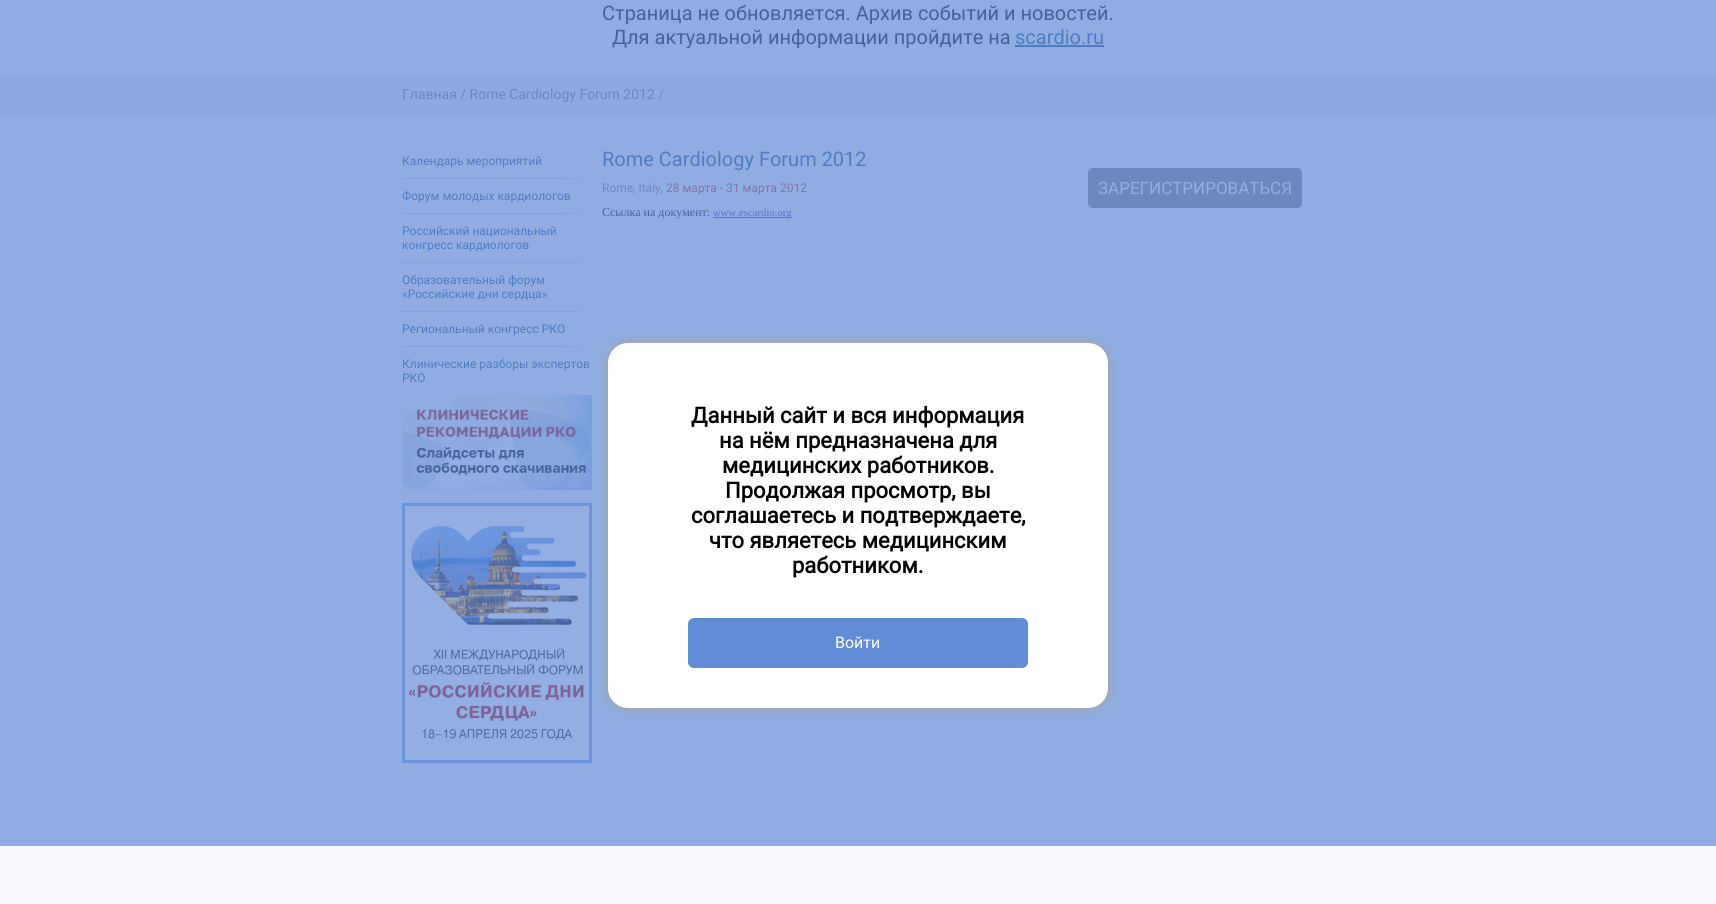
#include <cairo.h>
#include <math.h>
#include <stddef.h>


static void set_color(cairo_t *cr, unsigned color) {
    cairo_set_source_rgb(cr, (color >> 16) / 255.0, (color >> 8 & 255) / 255.0, (color & 255) / 255.0);
}

static void draw_text(cairo_t *cr, double x, double y, const char *s, const char *family, double size, int italic, int bold, unsigned color) {
    cairo_select_font_face(cr, family, italic ? CAIRO_FONT_SLANT_ITALIC : CAIRO_FONT_SLANT_NORMAL,
        bold ? CAIRO_FONT_WEIGHT_BOLD : CAIRO_FONT_WEIGHT_NORMAL);
    cairo_set_font_size(cr, size);
    set_color(cr, color);
    cairo_move_to(cr, x, y);
    cairo_show_text(cr, s);
}

static void fill_rect(cairo_t *cr, double x, double y, double w, double h, unsigned color) {
    set_color(cr, color);
    cairo_rectangle(cr, x, y, w, h);
    cairo_fill(cr);
}

static void rounded_rect(cairo_t *cr, double x, double y, double w, double h, double r) {
    cairo_new_sub_path(cr);
    cairo_arc(cr, x + w - r, y + h - r, r, 0, M_PI / 2);
    cairo_arc(cr, x + r, y + h - r, r, M_PI / 2, M_PI);
    cairo_arc(cr, x + r, y + r, r, M_PI, 1.5 * M_PI);
    cairo_arc(cr, x + w - r, y + r, r, 1.5 * M_PI, 2 * M_PI);
    cairo_close_path(cr);
}

static void draw_shadow(cairo_t *cr, double x, double y, double w, double h, double r, double blur, double alpha) {
    cairo_push_group_with_content(cr, CAIRO_CONTENT_ALPHA);
    cairo_set_operator(cr, CAIRO_OPERATOR_SOURCE);
    for (int i = 15; i >= -15 && fmin(w, h) + blur * i / 3 > 0; i -= 2) {
        double e = blur * i / 6;
        cairo_set_source_rgba(cr, 0, 0, 0, alpha * erfc((i - 1) / 8.5) / 2);
        rounded_rect(cr, x - e, y - e, w + 2 * e, h + 2 * e, fmax(0, fmin(r + e + blur * .6, fmin(w, h) / 2 + e)));
        cairo_fill(cr);
    }
    cairo_pattern_t *soft = cairo_pop_group(cr);
    cairo_mask(cr, soft);
    cairo_pattern_destroy(soft);
}

static void draw_image(cairo_t *cr, const char *path, double x, double y, double w, double h) {
    cairo_surface_t *image = cairo_image_surface_create_from_png(path);
    cairo_save(cr);
    cairo_set_source_surface(cr, image, x, y);
    cairo_rectangle(cr, x, y, w, h);
    cairo_fill(cr);
    cairo_restore(cr);
    cairo_surface_destroy(image);
}

int main(void) {
    cairo_surface_t *surface = cairo_image_surface_create(CAIRO_FORMAT_RGB24, 1716, 904);
    cairo_t *cr = cairo_create(surface);
    cairo_font_options_t *options = cairo_font_options_create();
    cairo_font_options_set_hint_metrics(options, CAIRO_HINT_METRICS_OFF);
    cairo_font_options_set_hint_style(options, CAIRO_HINT_STYLE_NONE);
    cairo_set_font_options(cr, options);
    cairo_set_miter_limit(cr, 4);
    set_color(cr, 0xF7F9FC);
    cairo_paint(cr);
    fill_rect(cr, 0, 0, 1716, 846, 0x8FADE2);
    draw_text(cr, 602, 20, "Страница не обновляется. Архив событий и новостей.", "Roboto", 20, 0, 0, 0x456297);
    draw_text(cr, 612, 44, "Для актуальной информации пройдите на", "Roboto", 20, 0, 0, 0x456297);
    draw_text(cr, 1015, 44, "scardio.ru", "Roboto", 20, 0, 0, 0x507BC0);
    fill_rect(cr, 1015, 45, 89, 2, 0x507BC0);
    fill_rect(cr, 0, 74, 1716, 40, 0x8CAAE1);
    draw_text(cr, 402, 99, "Главная / Rome Cardiology Forum 2012 /", "Roboto", 14, 0, 0, 0x6C88BD);
    fill_rect(cr, 402, 178, 164, 1, 0x85A1D6);
    draw_text(cr, 402, 165, "Календарь мероприятий", "Roboto", 12, 0, 0, 0x507BC0);
    draw_image(cr, "assets/img1.png", 566, 178, 36, 1);
    fill_rect(cr, 402, 213, 164, 1, 0x85A1D6);
    draw_text(cr, 402, 200, "Форум молодых кардиологов", "Roboto", 12, 0, 0, 0x507BC0);
    draw_image(cr, "assets/img1.png", 566, 213, 36, 1);
    fill_rect(cr, 402, 262, 164, 1, 0x85A1D6);
    draw_text(cr, 402, 235, "Российский национальный", "Roboto", 12, 0, 0, 0x507BC0);
    draw_text(cr, 402, 249, "конгресс кардиологов", "Roboto", 12, 0, 0, 0x507BC0);
    draw_image(cr, "assets/img1.png", 566, 262, 36, 1);
    fill_rect(cr, 402, 311, 164, 1, 0x85A1D6);
    draw_text(cr, 402, 284, "Образовательный форум", "Roboto", 12, 0, 0, 0x507BC0);
    draw_text(cr, 402, 298, "«Российские дни сердца»", "Roboto", 12, 0, 0, 0x507BC0);
    draw_image(cr, "assets/img1.png", 566, 311, 36, 1);
    fill_rect(cr, 402, 346, 164, 1, 0x85A1D6);
    draw_text(cr, 402, 333, "Региональный конгресс РКО", "Roboto", 12, 0, 0, 0x507BC0);
    draw_image(cr, "assets/img1.png", 566, 346, 36, 1);
    draw_text(cr, 402, 368, "Клинические разборы экспертов", "Roboto", 12, 0, 0, 0x507BC0);
    draw_text(cr, 402, 382, "РКО", "Roboto", 12, 0, 0, 0x507BC0);
    draw_image(cr, "assets/img2.png", 402, 395, 190, 95);
    draw_image(cr, "assets/img3.png", 402, 503, 190, 260);
    draw_text(cr, 602, 166, "Rome Cardiology Forum 2012", "Roboto", 20, 0, 0, 0x507BC0);
    draw_text(cr, 602, 192, "Rome, Italy,", "Roboto", 12, 0, 0, 0x6C88BD);
    draw_text(cr, 666, 192, "28 марта - 31 марта 2012", "Roboto", 12, 0, 0, 0x8371A6);
    set_color(cr, 0x6C88BD);
    rounded_rect(cr, 1088, 168, 214, 40, 5);
    cairo_fill(cr);
    draw_text(cr, 1098, 194, "ЗАРЕГИСТРИРОВАТЬСЯ", "Roboto", 17, 0, 0, 0x92AFE3);
    draw_text(cr, 602, 216, "Ссылка на документ:", "Liberation Serif", 12, 0, 0, 0x456297);
    fill_rect(cr, 713, 217, 78, 1, 0x5572D4);
    draw_text(cr, 713, 216, "www.escardio.org", "Liberation Serif", 10.75, 0, 0, 0x5572D4);
    set_color(cr, 0xA2A2A2);
    draw_shadow(cr, 607, 342, 502, 367, 21, 5.5, 1);
    set_color(cr, 0xFFFFFF);
    rounded_rect(cr, 608, 343, 500, 365, 20);
    cairo_fill(cr);
    draw_text(cr, 691, 423, "Данный сайт и вся информация", "Roboto", 22, 0, 1, 0x000000);
    draw_text(cr, 719, 448, "на нём предназначена для", "Roboto", 22, 0, 1, 0x000000);
    draw_text(cr, 722, 473, "медицинских работников.", "Roboto", 22, 0, 1, 0x000000);
    draw_text(cr, 725, 498, "Продолжая просмотр, вы", "Roboto", 22, 0, 1, 0x000000);
    draw_text(cr, 691, 523, "соглашаетесь и подтверждаете,", "Roboto", 22, 0, 1, 0x000000);
    draw_text(cr, 709, 548, "что являетесь медицинским", "Roboto", 22, 0, 1, 0x000000);
    draw_text(cr, 792, 573, "работником.", "Roboto", 22, 0, 1, 0x000000);
    set_color(cr, 0x638CD7);
    rounded_rect(cr, 688, 618, 340, 50, 6);
    cairo_fill(cr);
    draw_text(cr, 835, 648, "Войти", "Roboto", 16, 0, 0, 0xFFFFFF);
    cairo_surface_write_to_png(surface, "output.png");
    cairo_font_options_destroy(options);
    cairo_destroy(cr);
    cairo_surface_destroy(surface);
    return 0;
}
